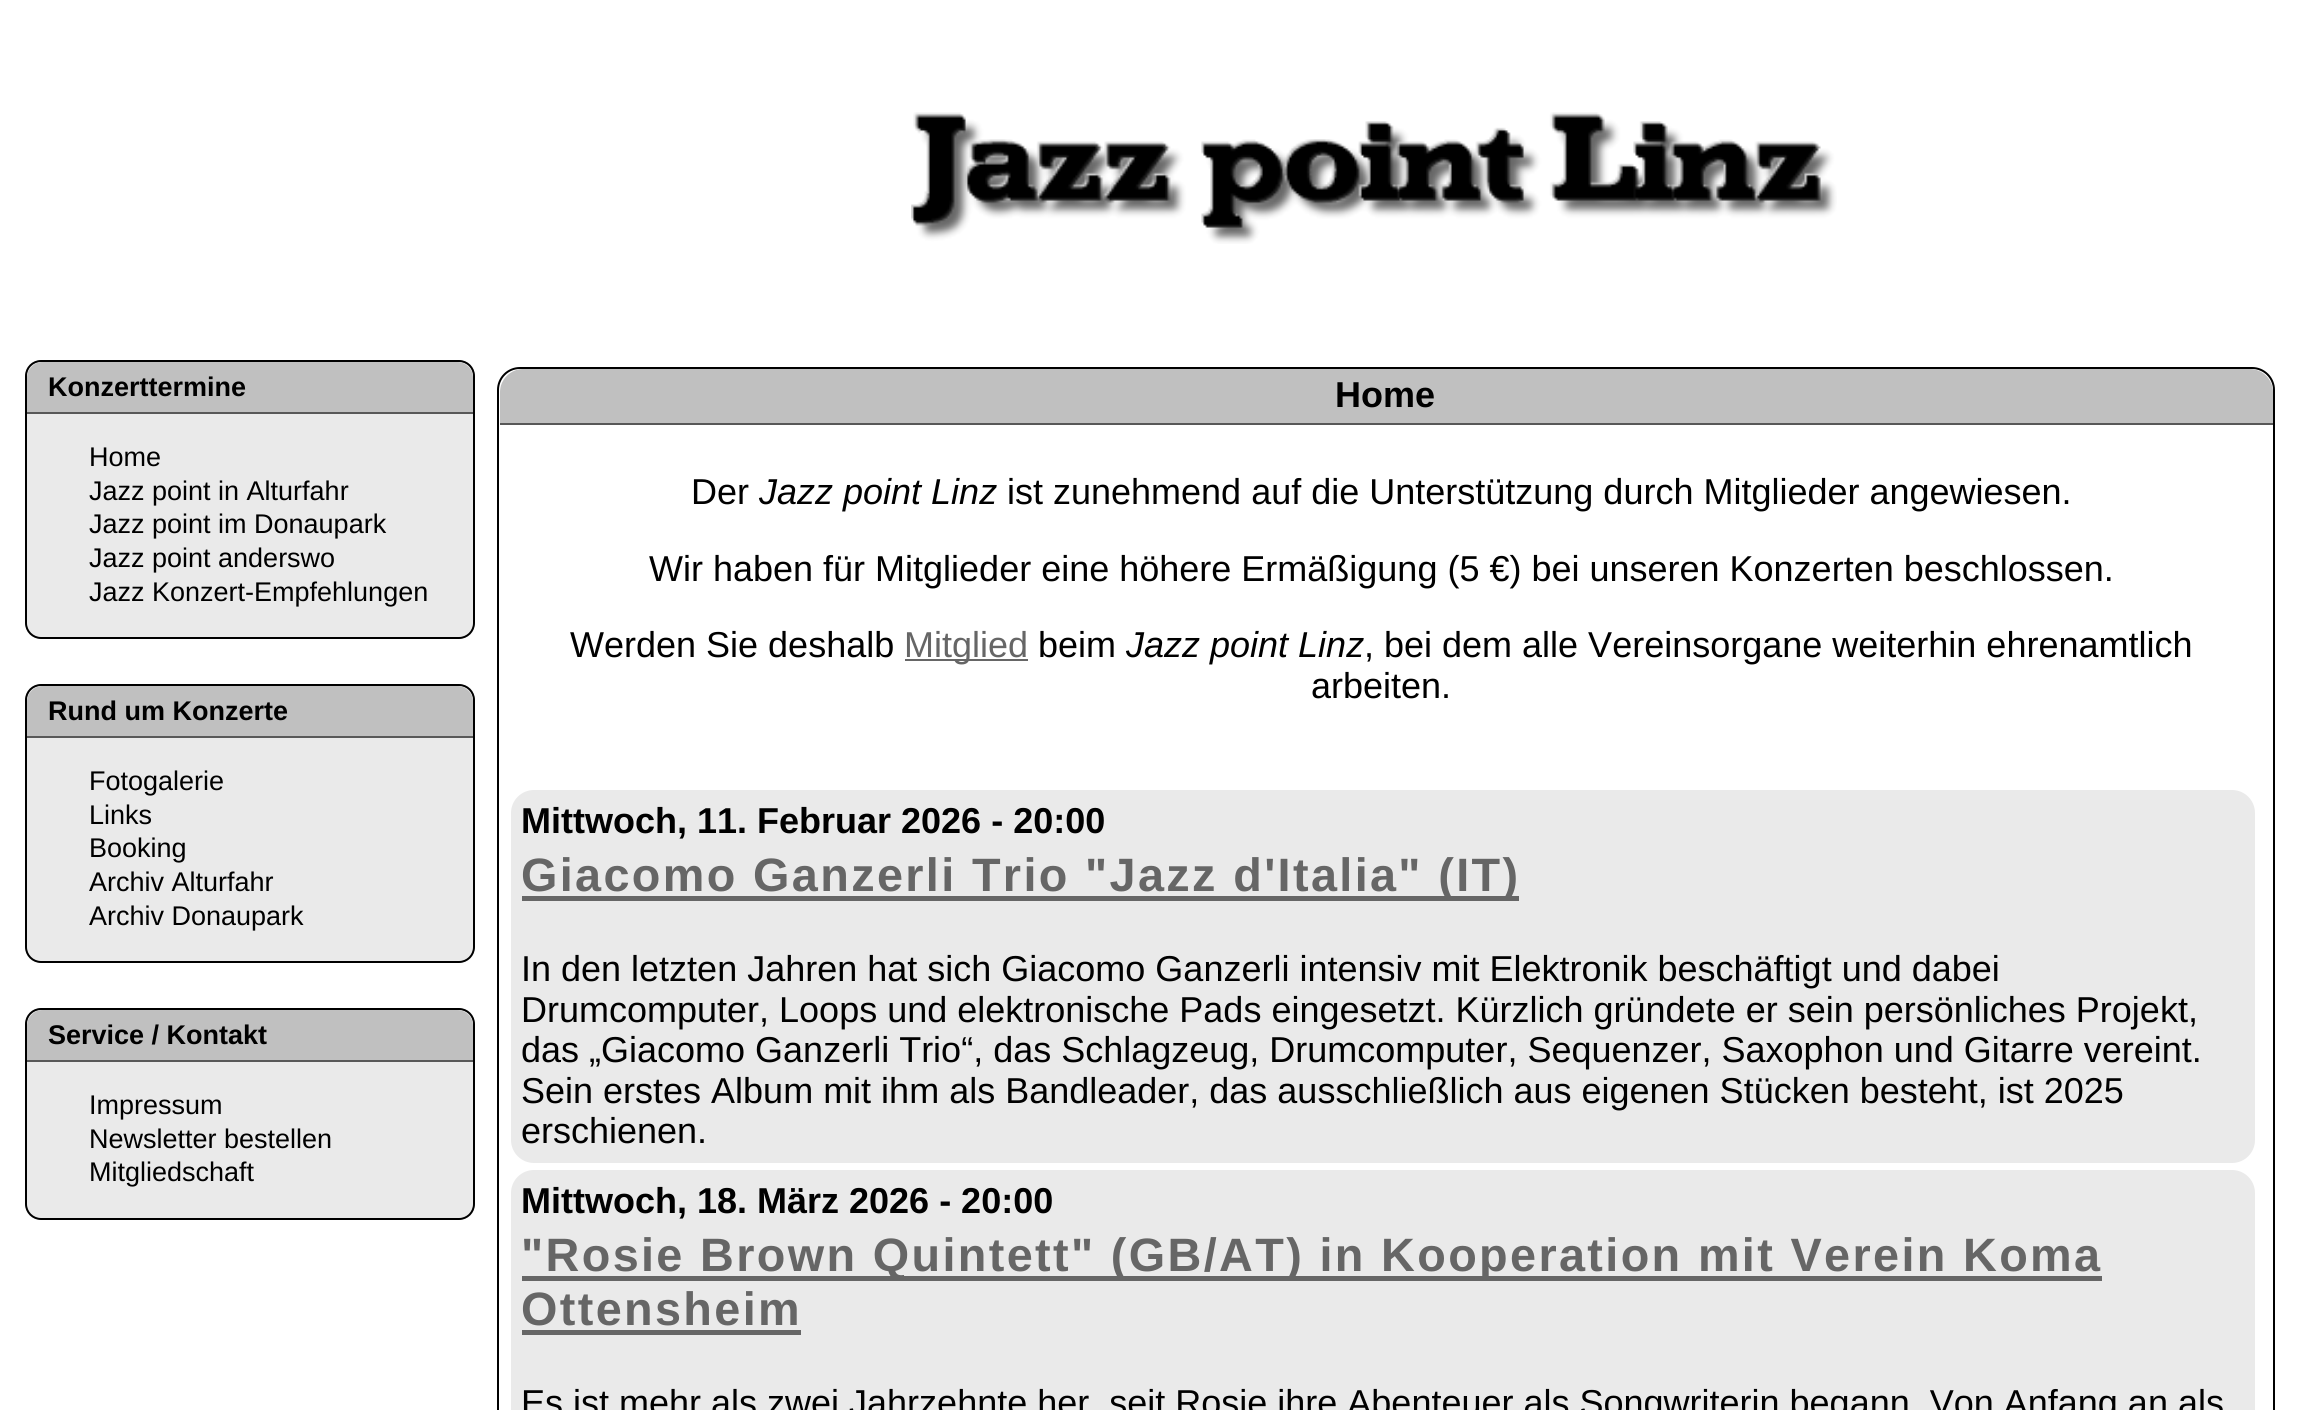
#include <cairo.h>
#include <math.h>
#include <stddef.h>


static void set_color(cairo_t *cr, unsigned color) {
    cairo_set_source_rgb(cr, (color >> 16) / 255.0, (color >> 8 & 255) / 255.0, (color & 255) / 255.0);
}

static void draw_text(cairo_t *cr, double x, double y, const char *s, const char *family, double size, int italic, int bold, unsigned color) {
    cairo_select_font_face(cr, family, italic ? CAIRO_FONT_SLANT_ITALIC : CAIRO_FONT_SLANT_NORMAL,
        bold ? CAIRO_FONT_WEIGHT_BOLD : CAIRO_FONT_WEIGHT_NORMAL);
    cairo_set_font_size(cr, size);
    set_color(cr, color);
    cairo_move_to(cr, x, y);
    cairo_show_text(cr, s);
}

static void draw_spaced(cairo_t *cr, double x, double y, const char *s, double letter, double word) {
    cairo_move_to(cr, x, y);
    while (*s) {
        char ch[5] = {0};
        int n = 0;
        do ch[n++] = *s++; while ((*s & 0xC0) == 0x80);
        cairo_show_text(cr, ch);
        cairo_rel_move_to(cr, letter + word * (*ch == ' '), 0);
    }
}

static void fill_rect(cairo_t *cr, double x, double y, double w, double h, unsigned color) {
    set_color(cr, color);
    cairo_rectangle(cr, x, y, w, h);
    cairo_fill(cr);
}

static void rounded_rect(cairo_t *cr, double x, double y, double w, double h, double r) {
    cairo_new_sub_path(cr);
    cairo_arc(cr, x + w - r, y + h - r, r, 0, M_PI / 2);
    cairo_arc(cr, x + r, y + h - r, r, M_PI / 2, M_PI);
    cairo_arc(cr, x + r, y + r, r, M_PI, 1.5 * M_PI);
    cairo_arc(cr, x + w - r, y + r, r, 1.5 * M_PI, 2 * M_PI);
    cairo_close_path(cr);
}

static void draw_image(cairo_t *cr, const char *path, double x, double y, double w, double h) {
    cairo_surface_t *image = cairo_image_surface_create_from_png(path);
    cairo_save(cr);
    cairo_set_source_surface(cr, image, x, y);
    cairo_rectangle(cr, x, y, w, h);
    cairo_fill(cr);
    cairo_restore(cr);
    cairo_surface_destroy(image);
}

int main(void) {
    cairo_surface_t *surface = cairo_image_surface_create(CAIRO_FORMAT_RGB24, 2297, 1410);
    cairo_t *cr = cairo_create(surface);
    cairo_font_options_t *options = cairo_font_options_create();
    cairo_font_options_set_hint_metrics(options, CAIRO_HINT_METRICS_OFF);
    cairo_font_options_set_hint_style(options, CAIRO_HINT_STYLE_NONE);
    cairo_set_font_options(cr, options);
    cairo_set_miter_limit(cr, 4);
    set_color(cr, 0xFFFFFF);
    cairo_paint(cr);
    draw_image(cr, "assets/img1.png", 911, 112, 926, 132);
    set_color(cr, 0xEAEAEA);
    rounded_rect(cr, 26, 361, 448, 277, 15);
    cairo_fill_preserve(cr);
    set_color(cr, 0x000000);
    cairo_stroke(cr);
    set_color(cr, 0xC0C0C0);
    cairo_new_path(cr);
    cairo_move_to(cr, 43, 362);
    cairo_line_to(cr, 457, 362);
    cairo_curve_to(cr, 466, 362, 473, 369, 473, 378);
    cairo_line_to(cr, 473, 414);
    cairo_line_to(cr, 27, 414);
    cairo_line_to(cr, 27, 378);
    cairo_curve_to(cr, 27, 369, 34, 362, 43, 362);
    cairo_close_path(cr);
    cairo_fill(cr);
    fill_rect(cr, 27, 412, 446, 2, 0x585858);
    draw_text(cr, 48, 396, "Konzerttermine", "Liberation Sans", 27, 0, 1, 0x000000);
    draw_text(cr, 89, 466, "Home", "Liberation Sans", 27, 0, 0, 0x000000);
    draw_text(cr, 89, 500, "Jazz point in Alturfahr", "Liberation Sans", 27, 0, 0, 0x000000);
    draw_text(cr, 89, 533, "Jazz point im Donaupark", "Liberation Sans", 27, 0, 0, 0x000000);
    draw_text(cr, 89, 567, "Jazz point anderswo", "Liberation Sans", 27, 0, 0, 0x000000);
    draw_text(cr, 89, 601, "Jazz Konzert-Empfehlungen", "Liberation Sans", 27, 0, 0, 0x000000);
    set_color(cr, 0xEAEAEA);
    rounded_rect(cr, 26, 685, 448, 277, 15);
    cairo_fill_preserve(cr);
    set_color(cr, 0x000000);
    cairo_stroke(cr);
    set_color(cr, 0xC0C0C0);
    cairo_new_path(cr);
    cairo_move_to(cr, 43, 686);
    cairo_line_to(cr, 457, 686);
    cairo_curve_to(cr, 466, 686, 473, 693, 473, 702);
    cairo_line_to(cr, 473, 738);
    cairo_line_to(cr, 27, 738);
    cairo_line_to(cr, 27, 702);
    cairo_curve_to(cr, 27, 693, 34, 686, 43, 686);
    cairo_close_path(cr);
    cairo_fill(cr);
    fill_rect(cr, 27, 736, 446, 2, 0x585858);
    draw_text(cr, 48, 720, "Rund um Konzerte", "Liberation Sans", 27, 0, 1, 0x000000);
    draw_text(cr, 89, 790, "Fotogalerie", "Liberation Sans", 27, 0, 0, 0x000000);
    draw_text(cr, 89, 824, "Links", "Liberation Sans", 27, 0, 0, 0x000000);
    draw_text(cr, 89, 857, "Booking", "Liberation Sans", 27, 0, 0, 0x000000);
    draw_text(cr, 89, 891, "Archiv Alturfahr", "Liberation Sans", 27, 0, 0, 0x000000);
    draw_text(cr, 89, 925, "Archiv Donaupark", "Liberation Sans", 27, 0, 0, 0x000000);
    set_color(cr, 0xEAEAEA);
    rounded_rect(cr, 26, 1009, 448, 210, 15);
    cairo_fill_preserve(cr);
    set_color(cr, 0x000000);
    cairo_stroke(cr);
    set_color(cr, 0xC0C0C0);
    cairo_new_path(cr);
    cairo_move_to(cr, 43, 1010);
    cairo_line_to(cr, 457, 1010);
    cairo_curve_to(cr, 466, 1010, 473, 1017, 473, 1026);
    cairo_line_to(cr, 473, 1062);
    cairo_line_to(cr, 27, 1062);
    cairo_line_to(cr, 27, 1026);
    cairo_curve_to(cr, 27, 1017, 34, 1010, 43, 1010);
    cairo_close_path(cr);
    cairo_fill(cr);
    fill_rect(cr, 27, 1060, 446, 2, 0x585858);
    draw_text(cr, 48, 1044, "Service / Kontakt", "Liberation Sans", 27, 0, 1, 0x000000);
    draw_text(cr, 89, 1114, "Impressum", "Liberation Sans", 27, 0, 0, 0x000000);
    draw_text(cr, 89, 1148, "Newsletter bestellen", "Liberation Sans", 27, 0, 0, 0x000000);
    draw_text(cr, 89, 1181, "Mitgliedschaft", "Liberation Sans", 27, 0, 0, 0x000000);
    rounded_rect(cr, 498, 368, 1776, 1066, 22);
    cairo_stroke(cr);
    set_color(cr, 0xC0C0C0);
    cairo_new_path(cr);
    cairo_move_to(cr, 523, 369);
    cairo_line_to(cr, 2250, 369);
    cairo_curve_to(cr, 2262.5, 369, 2273, 379.5, 2273, 392);
    cairo_line_to(cr, 2273, 425);
    cairo_line_to(cr, 500, 425);
    cairo_line_to(cr, 500, 392);
    cairo_curve_to(cr, 500, 379.5, 510.5, 369, 523, 369);
    cairo_close_path(cr);
    cairo_fill(cr);
    fill_rect(cr, 500, 423, 1773, 2, 0x585858);
    draw_text(cr, 1335, 407, "Home", "Liberation Sans", 36, 0, 1, 0x000000);
    draw_text(cr, 691, 504, "Der", "Liberation Sans", 36, 0, 0, 0x000000);
    draw_text(cr, 759, 504, "Jazz point Linz", "Liberation Sans", 36, 1, 0, 0x000000);
    draw_text(cr, 1007, 504, "ist zunehmend auf die Unterstützung durch Mitglieder angewiesen.", "Liberation Sans", 36, 0, 0, 0x000000);
    draw_text(cr, 649, 581, "Wir haben für Mitglieder eine höhere Ermäßigung (5 €) bei unseren Konzerten beschlossen.", "Liberation Sans", 36, 0, 0, 0x000000);
    draw_text(cr, 570, 657, "Werden Sie deshalb", "Liberation Sans", 36, 0, 0, 0x000000);
    fill_rect(cr, 905, 659, 123, 2, 0x666666);
    draw_text(cr, 904, 657, "Mitglied", "Liberation Sans", 36, 0, 0, 0x666666);
    draw_text(cr, 1038, 657, "beim", "Liberation Sans", 36, 0, 0, 0x000000);
    draw_text(cr, 1126, 657, "Jazz point Linz", "Liberation Sans", 36, 1, 0, 0x000000);
    draw_text(cr, 1364, 657, ", bei dem alle Vereinsorgane weiterhin ehrenamtlich", "Liberation Sans", 36, 0, 0, 0x000000);
    draw_text(cr, 1311, 698, "arbeiten.", "Liberation Sans", 36, 0, 0, 0x000000);
    set_color(cr, 0xEAEAEA);
    rounded_rect(cr, 511, 790, 1744, 373, 23);
    cairo_fill(cr);
    draw_text(cr, 521, 833, "Mittwoch, 11. Februar 2026 - 20:00", "Liberation Sans", 36, 0, 1, 0x000000);
    fill_rect(cr, 522, 896, 997, 5, 0x666666);
    cairo_set_font_size(cr, 46.8);
    draw_spaced(cr, 521, 891, "Giacomo Ganzerli Trio \"Jazz d'Italia\" (IT)", 2.35, 0);
    draw_text(cr, 521, 981, "In den letzten Jahren hat sich Giacomo Ganzerli intensiv mit Elektronik beschäftigt und dabei", "Liberation Sans", 36, 0, 0, 0x000000);
    draw_text(cr, 521, 1022, "Drumcomputer, Loops und elektronische Pads eingesetzt. Kürzlich gründete er sein persönliches Projekt,", "Liberation Sans", 36, 0, 0, 0x000000);
    draw_text(cr, 521, 1062, "das „Giacomo Ganzerli Trio“, das Schlagzeug, Drumcomputer, Sequenzer, Saxophon und Gitarre vereint.", "Liberation Sans", 36, 0, 0, 0x000000);
    draw_text(cr, 521, 1103, "Sein erstes Album mit ihm als Bandleader, das ausschließlich aus eigenen Stücken besteht, ist 2025", "Liberation Sans", 36, 0, 0, 0x000000);
    draw_text(cr, 521, 1143, "erschienen.", "Liberation Sans", 36, 0, 0, 0x000000);
    set_color(cr, 0xEAEAEA);
    rounded_rect(cr, 511, 1170, 1744, 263, 23);
    cairo_fill(cr);
    draw_text(cr, 521, 1213, "Mittwoch, 18. März 2026 - 20:00", "Liberation Sans", 36, 0, 1, 0x000000);
    fill_rect(cr, 522, 1276, 1580, 5, 0x666666);
    cairo_set_font_size(cr, 46.8);
    draw_spaced(cr, 521, 1271, "\"Rosie Brown Quintett\" (GB/AT) in Kooperation mit Verein Koma", 2.35, 0);
    draw_spaced(cr, 521, 1325, "Ottensheim", 2.35, 0);
    fill_rect(cr, 522, 1330, 279, 5, 0x666666);
    draw_text(cr, 521, 1415, "Es ist mehr als zwei Jahrzehnte her, seit Rosie ihre Abenteuer als Songwriterin begann. Von Anfang an als", "Liberation Sans", 36, 0, 0, 0x000000);
    cairo_surface_write_to_png(surface, "output.png");
    cairo_font_options_destroy(options);
    cairo_destroy(cr);
    cairo_surface_destroy(surface);
    return 0;
}
